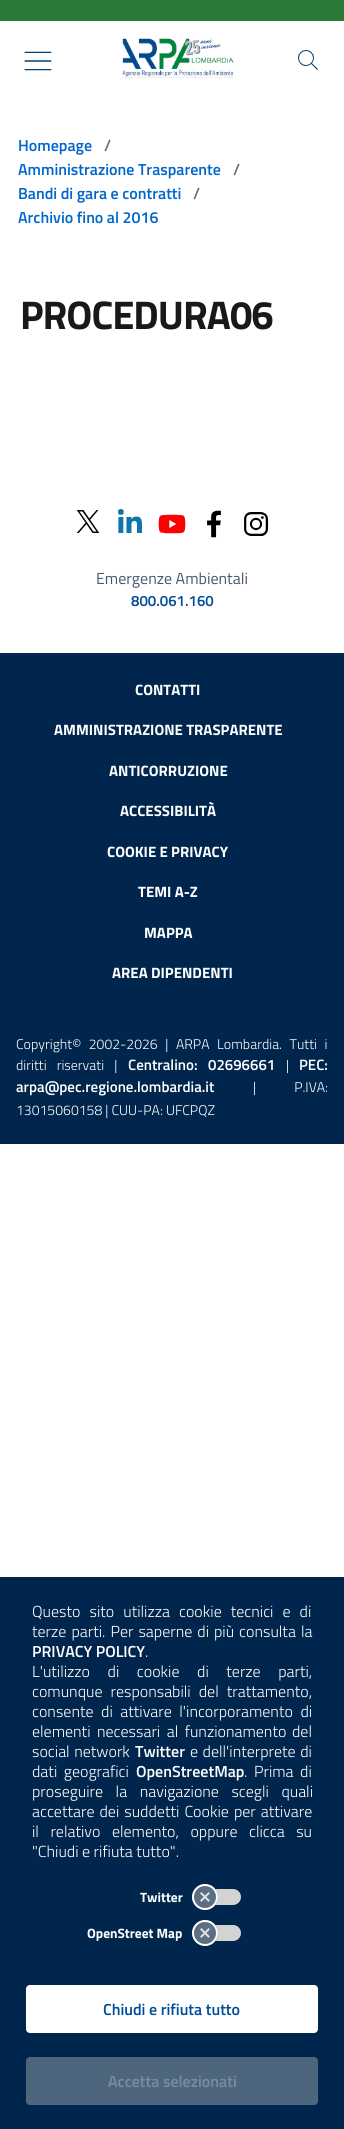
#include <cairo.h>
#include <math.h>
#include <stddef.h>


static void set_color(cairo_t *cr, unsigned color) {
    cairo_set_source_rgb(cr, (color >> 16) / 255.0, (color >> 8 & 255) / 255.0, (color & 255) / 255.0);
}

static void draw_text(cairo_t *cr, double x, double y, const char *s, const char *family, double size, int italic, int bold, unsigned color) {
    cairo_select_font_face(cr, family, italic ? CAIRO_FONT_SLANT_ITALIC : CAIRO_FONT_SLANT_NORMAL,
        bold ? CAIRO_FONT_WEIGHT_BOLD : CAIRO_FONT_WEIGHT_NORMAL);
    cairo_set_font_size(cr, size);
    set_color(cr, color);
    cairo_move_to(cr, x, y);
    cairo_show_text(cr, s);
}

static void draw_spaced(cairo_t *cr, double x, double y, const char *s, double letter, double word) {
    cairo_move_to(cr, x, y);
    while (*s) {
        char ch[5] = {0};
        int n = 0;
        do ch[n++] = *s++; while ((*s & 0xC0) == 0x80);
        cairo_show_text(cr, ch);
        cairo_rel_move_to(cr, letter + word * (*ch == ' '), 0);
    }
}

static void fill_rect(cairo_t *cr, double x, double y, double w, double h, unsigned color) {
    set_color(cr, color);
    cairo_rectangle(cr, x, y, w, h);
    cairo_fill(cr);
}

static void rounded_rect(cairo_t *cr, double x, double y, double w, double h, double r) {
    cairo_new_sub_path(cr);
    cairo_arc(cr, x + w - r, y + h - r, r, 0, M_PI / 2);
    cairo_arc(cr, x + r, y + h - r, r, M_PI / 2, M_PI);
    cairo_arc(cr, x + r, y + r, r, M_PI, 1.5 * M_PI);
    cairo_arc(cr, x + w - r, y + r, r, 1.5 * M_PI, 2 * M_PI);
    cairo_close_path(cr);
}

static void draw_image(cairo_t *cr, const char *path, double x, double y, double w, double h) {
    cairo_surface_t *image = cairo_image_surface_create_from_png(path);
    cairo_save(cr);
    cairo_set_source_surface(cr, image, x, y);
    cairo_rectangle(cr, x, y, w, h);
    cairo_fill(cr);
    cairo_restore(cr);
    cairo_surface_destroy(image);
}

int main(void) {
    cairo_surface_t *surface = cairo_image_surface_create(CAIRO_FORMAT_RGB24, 344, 2129);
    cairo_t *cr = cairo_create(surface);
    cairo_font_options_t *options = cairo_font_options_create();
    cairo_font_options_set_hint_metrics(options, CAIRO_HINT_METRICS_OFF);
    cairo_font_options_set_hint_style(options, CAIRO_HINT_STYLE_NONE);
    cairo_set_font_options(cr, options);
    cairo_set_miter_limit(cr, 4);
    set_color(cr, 0xFFFFFF);
    cairo_paint(cr);
    fill_rect(cr, 0, 0, 344, 21, 0x297A38);
    draw_image(cr, "assets/img1.png", 24, 51, 28, 20);
    draw_image(cr, "assets/img2.png", 122, 38, 112, 40);
    draw_image(cr, "assets/img3.png", 298, 50, 20, 20);
    draw_text(cr, 18, 151, "Homepage", "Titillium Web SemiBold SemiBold", 16, 0, 0, 0x0066CC);
    draw_text(cr, 104, 151, "/", "Titillium Web SemiBold SemiBold", 16, 0, 0, 0x5B6F82);
    draw_text(cr, 18, 175, "Amministrazione Trasparente", "Titillium Web SemiBold SemiBold", 16, 0, 0, 0x0066CC);
    draw_text(cr, 233, 175, "/", "Titillium Web SemiBold SemiBold", 16, 0, 0, 0x5B6F82);
    draw_text(cr, 18, 199, "Bandi di gara e contratti", "Titillium Web SemiBold SemiBold", 16, 0, 0, 0x0066CC);
    draw_text(cr, 193, 199, "/", "Titillium Web SemiBold SemiBold", 16, 0, 0, 0x5B6F82);
    draw_text(cr, 18, 223, "Archivio fino al 2016", "Titillium Web SemiBold SemiBold", 16, 0, 0, 0x0066CC);
    cairo_select_font_face(cr, "Titillium Web", CAIRO_FONT_SLANT_NORMAL, CAIRO_FONT_WEIGHT_BOLD);
    cairo_set_font_size(cr, 40);
    set_color(cr, 0x19191A);
    draw_spaced(cr, 20, 329, "PROCEDURA06", -1, 0);
    fill_rect(cr, 0, 653, 344, 491, 0x00264D);
    draw_image(cr, "assets/img4.png", 76, 510, 24, 23);
    draw_image(cr, "assets/img5.png", 118, 509, 24, 24);
    draw_image(cr, "assets/img6.png", 158, 514, 28, 20);
    draw_image(cr, "assets/img7.png", 207, 510, 14, 28);
    draw_image(cr, "assets/img8.png", 244, 512, 25, 24);
    draw_text(cr, 96, 584, "Emergenze Ambientali", "Titillium Web", 16, 0, 0, 0x435A70);
    draw_text(cr, 131, 606, "800.061.160", "Titillium Web SemiBold SemiBold", 15, 0, 0, 0x004C99);
    draw_text(cr, 135, 695, "CONTATTI", "Titillium Web", 15, 0, 1, 0xFFFFFF);
    draw_text(cr, 54, 735, "AMMINISTRAZIONE TRASPARENTE", "Titillium Web", 15, 0, 1, 0xFFFFFF);
    draw_text(cr, 109, 776, "ANTICORRUZIONE", "Titillium Web", 15, 0, 1, 0xFFFFFF);
    draw_text(cr, 120, 816, "ACCESSIBILITÀ", "Titillium Web", 15, 0, 1, 0xFFFFFF);
    draw_text(cr, 107, 857, "COOKIE E PRIVACY", "Titillium Web", 15, 0, 1, 0xFFFFFF);
    draw_text(cr, 138, 897, "TEMI A-Z", "Titillium Web", 15, 0, 1, 0xFFFFFF);
    draw_text(cr, 144, 938, "MAPPA", "Titillium Web", 15, 0, 1, 0xFFFFFF);
    draw_text(cr, 112, 978, "AREA DIPENDENTI", "Titillium Web", 15, 0, 1, 0xFFFFFF);
    cairo_select_font_face(cr, "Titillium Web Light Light", CAIRO_FONT_SLANT_NORMAL, CAIRO_FONT_WEIGHT_NORMAL);
    cairo_set_font_size(cr, 14);
    draw_spaced(cr, 16, 1049, "Copyright© 2002-2026 | ARPA Lombardia. Tutti i", 0, 4.5);
    draw_spaced(cr, 16, 1070, "diritti riservati |", 0, 7);
    draw_text(cr, 128, 1070, "Centralino:", "Titillium Web SemiBold SemiBold", 15, 0, 0, 0xFFFFFF);
    draw_text(cr, 208, 1070, "02696661", "Titillium Web SemiBold SemiBold", 15, 0, 0, 0xFFFFFF);
    draw_text(cr, 286, 1070, "|", "Titillium Web Light Light", 14, 0, 0, 0xFFFFFF);
    draw_text(cr, 299, 1070, "PEC:", "Titillium Web SemiBold SemiBold", 15, 0, 0, 0xFFFFFF);
    draw_text(cr, 16, 1092, "arpa@pec.regione.lombardia.it", "Titillium Web SemiBold SemiBold", 15, 0, 0, 0xFFFFFF);
    cairo_select_font_face(cr, "Titillium Web Light Light", CAIRO_FONT_SLANT_NORMAL, CAIRO_FONT_WEIGHT_NORMAL);
    cairo_set_font_size(cr, 14);
    draw_spaced(cr, 253, 1092, "| P.IVA:", 0, 35);
    draw_text(cr, 16, 1115, "13015060158 | CUU-PA: UFCPQZ", "Titillium Web Light Light", 14, 0, 0, 0xFFFFFF);
    fill_rect(cr, 0, 1577, 344, 552, 0x00264D);
    cairo_set_font_size(cr, 16);
    set_color(cr, 0xFFFFFF);
    draw_spaced(cr, 32, 1617, "Questo sito utilizza cookie tecnici e di", 0, 5.5);
    draw_spaced(cr, 32, 1637, "terze parti. Per saperne di più consulta la", 0, 1.5);
    draw_text(cr, 32, 1657, "PRIVACY POLICY", "Titillium Web SemiBold SemiBold", 16, 0, 0, 0xFFFFFF);
    draw_text(cr, 145, 1657, ".", "Titillium Web Light Light", 16, 0, 0, 0xFFFFFF);
    draw_spaced(cr, 32, 1677, "L'utilizzo di cookie di terze parti,", 0, 14);
    draw_spaced(cr, 32, 1697, "comunque responsabili del trattamento,", 0, 4.5);
    draw_spaced(cr, 32, 1717, "consente di attivare l'incorporamento di", 0, 4);
    draw_spaced(cr, 32, 1737, "elementi necessari al funzionamento", 0, 3);
    draw_text(cr, 292, 1737, "del", "Titillium Web Light Light", 16, 0, 0, 0xFFFFFF);
    draw_spaced(cr, 32, 1757, "social network", 0, 1);
    draw_text(cr, 135, 1757, "Twitter", "Titillium Web SemiBold SemiBold", 16, 0, 0, 0xFFFFFF);
    cairo_select_font_face(cr, "Titillium Web Light Light", CAIRO_FONT_SLANT_NORMAL, CAIRO_FONT_WEIGHT_NORMAL);
    draw_spaced(cr, 190, 1757, "e dell'interprete di", 0, 1);
    draw_spaced(cr, 32, 1777, "dati geografici", 0, 3);
    draw_text(cr, 136, 1777, "OpenStreetMap", "Titillium Web SemiBold SemiBold", 16, 0, 0, 0xFFFFFF);
    draw_text(cr, 244, 1777, ".", "Titillium Web Light Light", 16, 0, 0, 0xFFFFFF);
    draw_spaced(cr, 254, 1777, "Prima di", 0, 3);
    draw_spaced(cr, 32, 1797, "proseguire la navigazione scegli quali", 0, 9);
    draw_spaced(cr, 32, 1817, "accettare dei suddetti Cookie per attivare", 0, 1.5);
    draw_spaced(cr, 32, 1837, "il relativo elemento, oppure clicca su", 0, 8);
    draw_text(cr, 32, 1857, "\"Chiudi e rifiuta tutto\".", "Titillium Web Light Light", 16, 0, 0, 0xFFFFFF);
    draw_text(cr, 140, 1902, "Twitter", "Titillium Web", 13.5, 0, 1, 0xFFFFFF);
    set_color(cr, 0xD3D3D3);
    rounded_rect(cr, 195, 1889, 46, 16, 8);
    cairo_fill(cr);
    set_color(cr, 0x5C6F82);
    cairo_arc(cr, 205, 1897, 13, 0, 2 * M_PI);
    cairo_fill(cr);
    draw_image(cr, "assets/img9.png", 200, 1892, 10, 10);
    cairo_arc(cr, 205, 1897, 12, 0, 2 * M_PI);
    set_color(cr, 0xFFFFFF);
    cairo_stroke(cr);
    draw_text(cr, 87, 1938, "OpenStreet Map", "Titillium Web", 13.5, 0, 1, 0xFFFFFF);
    set_color(cr, 0xD3D3D3);
    rounded_rect(cr, 195, 1925, 46, 16, 8);
    cairo_fill(cr);
    set_color(cr, 0x5C6F82);
    cairo_arc(cr, 205, 1933, 13, 0, 2 * M_PI);
    cairo_fill(cr);
    draw_image(cr, "assets/img9.png", 200, 1928, 10, 10);
    cairo_arc(cr, 205, 1933, 12, 0, 2 * M_PI);
    set_color(cr, 0xFFFFFF);
    cairo_stroke(cr);
    rounded_rect(cr, 26, 1985, 292, 48, 4);
    cairo_fill(cr);
    cairo_set_source_rgba(cr, 1, 1, 1, 0.15);
    cairo_new_path(cr);
    cairo_move_to(cr, 30, 1986);
    cairo_line_to(cr, 314, 1986);
    cairo_curve_to(cr, 316, 1986, 318, 1988, 318, 1990);
    cairo_curve_to(cr, 318, 1987, 317, 1985, 314, 1985);
    cairo_line_to(cr, 30, 1985);
    cairo_curve_to(cr, 27, 1985, 26, 1987, 26, 1990);
    cairo_curve_to(cr, 26, 1988, 28, 1986, 30, 1986);
    cairo_close_path(cr);
    cairo_fill(cr);
    draw_text(cr, 103, 2015, "Chiudi e rifiuta tutto", "Titillium Web SemiBold SemiBold", 16, 0, 0, 0x004C99);
    set_color(cr, 0x4D667E);
    rounded_rect(cr, 26, 2057, 292, 48, 4);
    cairo_fill(cr);
    draw_text(cr, 108, 2087, "Accetta selezionati", "Titillium Web SemiBold SemiBold", 16, 0, 0, 0x7C8B9E);
    cairo_surface_write_to_png(surface, "output.png");
    cairo_font_options_destroy(options);
    cairo_destroy(cr);
    cairo_surface_destroy(surface);
    return 0;
}
